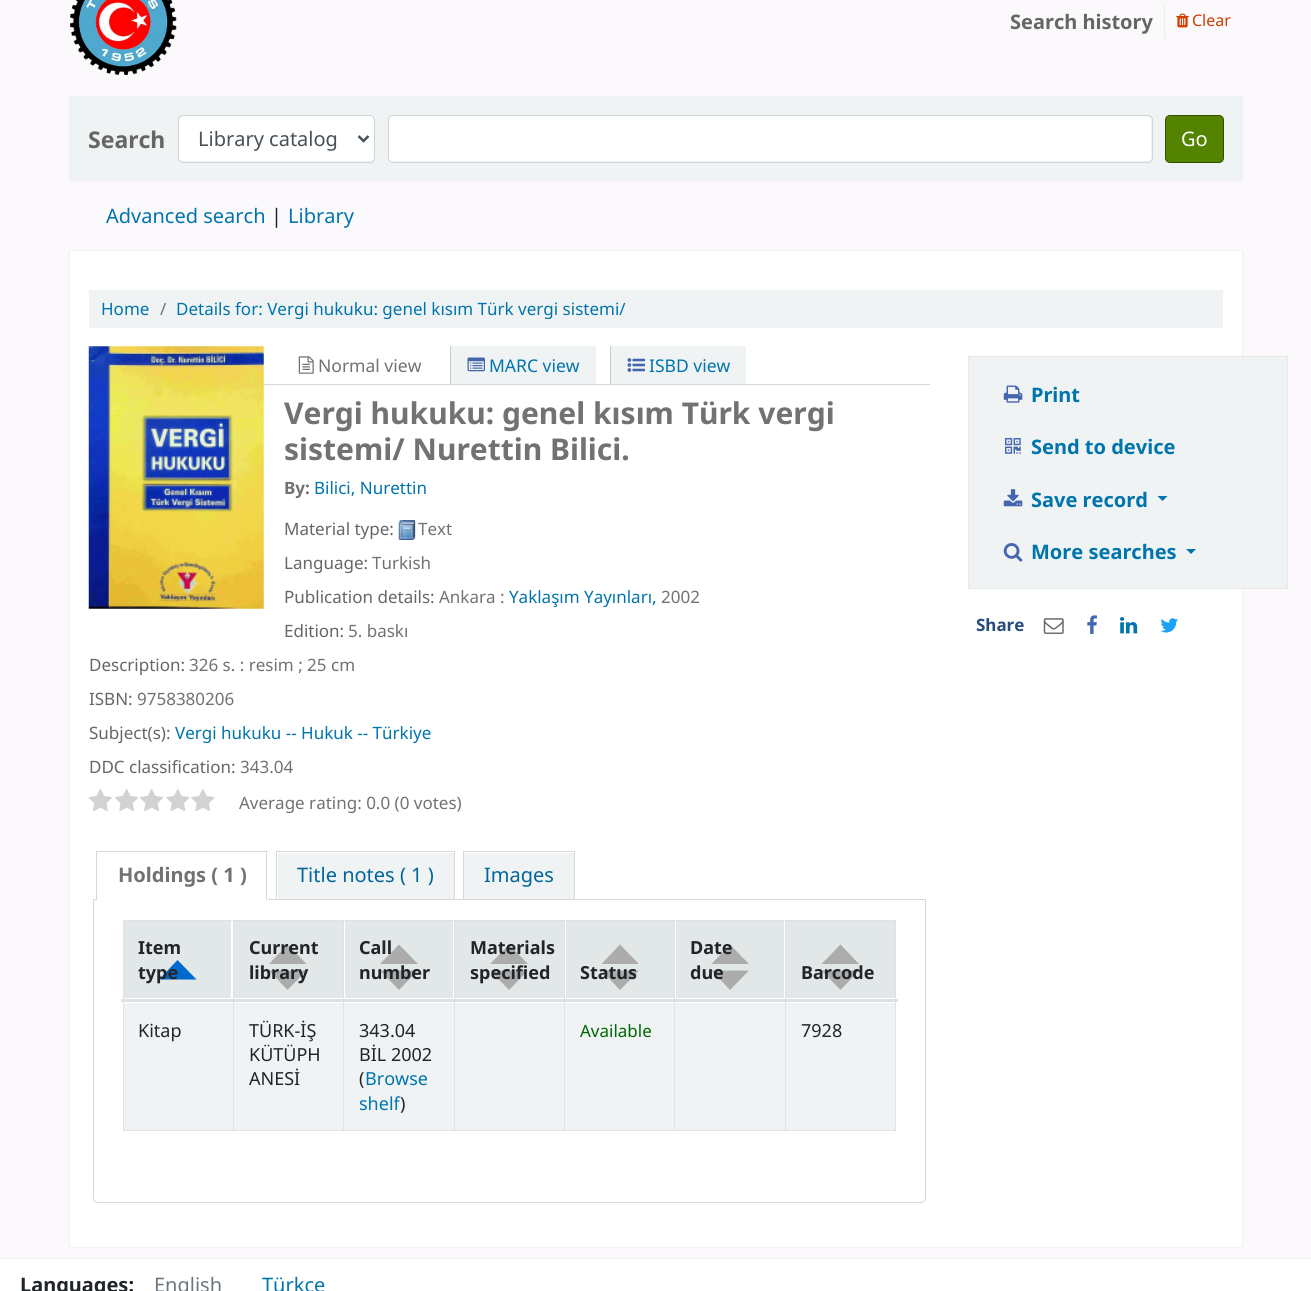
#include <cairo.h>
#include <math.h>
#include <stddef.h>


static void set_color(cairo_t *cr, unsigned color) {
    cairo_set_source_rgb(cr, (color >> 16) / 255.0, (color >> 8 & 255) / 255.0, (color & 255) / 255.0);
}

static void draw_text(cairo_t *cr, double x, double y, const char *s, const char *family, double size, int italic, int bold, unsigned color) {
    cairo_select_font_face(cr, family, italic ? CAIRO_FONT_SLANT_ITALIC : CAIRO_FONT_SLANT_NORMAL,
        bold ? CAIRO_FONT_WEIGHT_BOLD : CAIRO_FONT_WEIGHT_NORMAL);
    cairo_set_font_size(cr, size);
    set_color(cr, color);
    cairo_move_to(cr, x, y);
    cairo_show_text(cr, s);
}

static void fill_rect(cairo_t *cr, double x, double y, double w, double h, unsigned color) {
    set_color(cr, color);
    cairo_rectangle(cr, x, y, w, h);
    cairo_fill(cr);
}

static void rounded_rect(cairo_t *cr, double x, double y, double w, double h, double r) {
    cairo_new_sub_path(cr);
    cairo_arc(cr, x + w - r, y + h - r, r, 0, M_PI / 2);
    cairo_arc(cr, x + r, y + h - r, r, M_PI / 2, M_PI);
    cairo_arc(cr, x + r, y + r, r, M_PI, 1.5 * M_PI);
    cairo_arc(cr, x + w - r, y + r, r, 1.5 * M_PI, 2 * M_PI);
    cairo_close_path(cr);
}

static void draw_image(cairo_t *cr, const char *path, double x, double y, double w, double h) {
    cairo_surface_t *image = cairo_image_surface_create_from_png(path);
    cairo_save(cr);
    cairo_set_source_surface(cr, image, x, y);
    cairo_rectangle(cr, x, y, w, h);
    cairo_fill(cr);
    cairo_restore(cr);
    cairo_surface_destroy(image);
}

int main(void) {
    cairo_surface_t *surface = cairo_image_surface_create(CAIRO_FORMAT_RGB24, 1311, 1291);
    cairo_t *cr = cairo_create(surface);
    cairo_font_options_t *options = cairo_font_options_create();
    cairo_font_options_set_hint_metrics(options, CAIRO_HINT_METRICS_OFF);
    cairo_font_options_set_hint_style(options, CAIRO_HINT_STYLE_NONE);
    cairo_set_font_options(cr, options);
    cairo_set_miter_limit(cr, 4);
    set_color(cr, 0xFCF9FC);
    cairo_paint(cr);
    draw_image(cr, "assets/img1.png", 70, 0, 107, 75);
    draw_text(cr, 1010, 29, "Search history", "Noto Sans", 20, 0, 1, 0x666666);
    fill_rect(cr, 1164, 3, 3, 1, 0xEEEEEE);
    fill_rect(cr, 1165, 3, 1, 1, 0xFCF9FC);
    fill_rect(cr, 1164, 39, 3, 1, 0xEEEEEE);
    fill_rect(cr, 1164, 3, 1, 37, 0xEEEEEE);
    draw_image(cr, "assets/img2.png", 1176, 13, 13, 15);
    draw_text(cr, 1192, 26, "Clear", "Noto Sans", 16, 0, 0, 0xD43C00);
    fill_rect(cr, 69, 96, 1174, 85, 0xF0F3F3);
    draw_text(cr, 88, 148, "Search", "Noto Sans", 23, 0, 1, 0x666666);
    set_color(cr, 0xFFFFFF);
    rounded_rect(cr, 179, 116, 195, 45, 4);
    cairo_fill(cr);
    rounded_rect(cr, 178.5, 115.5, 196, 47, 4.5);
    set_color(cr, 0xCED4DA);
    cairo_set_line_width(cr, 1);
    cairo_stroke(cr);
    cairo_new_path(cr);
    cairo_move_to(cr, 358.5, 136);
    cairo_line_to(cr, 363.5, 141);
    cairo_line_to(cr, 368.5, 136);
    set_color(cr, 0x495057);
    cairo_set_line_width(cr, 2.5);
    cairo_stroke(cr);
    draw_text(cr, 198, 146, "Library catalog", "Noto Sans", 20, 0, 0, 0x495057);
    set_color(cr, 0xFFFFFF);
    rounded_rect(cr, 389, 116, 762, 45, 4);
    cairo_fill(cr);
    rounded_rect(cr, 388.5, 115.5, 764, 47, 4.5);
    set_color(cr, 0xCED4DA);
    cairo_set_line_width(cr, 1);
    cairo_stroke(cr);
    set_color(cr, 0x548300);
    rounded_rect(cr, 1165.5, 115.5, 58, 47, 4.5);
    cairo_fill_preserve(cr);
    set_color(cr, 0x335000);
    cairo_stroke(cr);
    draw_text(cr, 1181, 146, "Go", "Noto Sans", 20, 0, 0, 0xFFFFFF);
    draw_text(cr, 106, 223, "Advanced search", "Noto Sans", 20, 0, 0, 0x0074AD);
    draw_text(cr, 271, 223, "|", "Noto Sans", 20, 0, 0, 0x212529);
    draw_text(cr, 288, 223, "Library", "Noto Sans", 20, 0, 0, 0x0074AD);
    set_color(cr, 0xFFFFFF);
    cairo_rectangle(cr, 69.5, 250.5, 1173, 997);
    cairo_fill_preserve(cr);
    set_color(cr, 0xF0F3F3);
    cairo_stroke(cr);
    fill_rect(cr, 89, 290, 1134, 38, 0xF0F3F3);
    draw_text(cr, 101, 315, "Home", "Noto Sans", 17, 0, 0, 0x0074AD);
    draw_text(cr, 160, 315, "/", "Noto Sans", 17, 0, 0, 0x6C757D);
    draw_text(cr, 176, 315, "Details for: Vergi hukuku: genel kısım Türk vergi sistemi/", "Noto Sans", 17, 0, 0, 0x0074AD);
    fill_rect(cr, 263, 384, 667, 1, 0xD6D6D6);
    draw_image(cr, "assets/img3.png", 88, 346, 176, 263);
    draw_image(cr, "assets/img4.png", 298, 356, 16, 18);
    draw_text(cr, 318, 372, "Normal view", "Noto Sans", 17.5, 0, 0, 0x727272);
    fill_rect(cr, 451, 346, 145, 38, 0xF0F3F3);
    fill_rect(cr, 450, 346, 1, 38, 0xC9C9C9);
    draw_image(cr, "assets/img5.png", 467, 357, 18, 15);
    draw_text(cr, 489, 372, "MARC view", "Noto Sans", 17.5, 0, 0, 0x0074AD);
    fill_rect(cr, 611, 346, 135, 38, 0xF0F3F3);
    fill_rect(cr, 610, 346, 1, 38, 0xC9C9C9);
    draw_image(cr, "assets/img6.png", 627, 358, 18, 14);
    draw_text(cr, 649, 372, "ISBD view", "Noto Sans", 17.5, 0, 0, 0x0074AD);
    draw_text(cr, 284, 424, "Vergi hukuku: genel kısım Türk vergi", "Noto Sans", 30, 0, 1, 0x727272);
    draw_text(cr, 284, 460, "sistemi/ Nurettin Bilici.", "Noto Sans", 30, 0, 1, 0x727272);
    draw_text(cr, 284, 494, "By:", "Noto Sans", 17, 0, 1, 0x727272);
    draw_text(cr, 314, 494, "Bilici, Nurettin", "Noto Sans", 17, 0, 0, 0x0074AD);
    draw_text(cr, 284, 535, "Material type:", "Noto Sans", 17, 0, 0, 0x666666);
    draw_image(cr, "assets/img7.png", 398, 520, 18, 20);
    draw_text(cr, 418, 535, "Text", "Noto Sans", 17, 0, 0, 0x727272);
    draw_text(cr, 284, 569, "Language:", "Noto Sans", 17, 0, 0, 0x666666);
    draw_text(cr, 372, 569, "Turkish", "Noto Sans", 17, 0, 0, 0x727272);
    draw_text(cr, 284, 603, "Publication details:", "Noto Sans", 17, 0, 0, 0x666666);
    draw_text(cr, 439, 603, "Ankara :", "Noto Sans", 17, 0, 0, 0x727272);
    draw_text(cr, 509, 603, "Yaklaşım Yayınları,", "Noto Sans", 17, 0, 0, 0x0074AD);
    draw_text(cr, 661, 603, "2002", "Noto Sans", 17, 0, 0, 0x727272);
    draw_text(cr, 284, 637, "Edition:", "Noto Sans", 17, 0, 0, 0x666666);
    draw_text(cr, 348, 637, "5. baskı", "Noto Sans", 17, 0, 0, 0x727272);
    draw_text(cr, 89, 671, "Description:", "Noto Sans", 17, 0, 0, 0x666666);
    draw_text(cr, 189, 671, "326 s. : resim ; 25 cm", "Noto Sans", 17, 0, 0, 0x727272);
    draw_text(cr, 89, 705, "ISBN:", "Noto Sans", 17, 0, 0, 0x666666);
    draw_text(cr, 137, 705, "9758380206", "Noto Sans", 17, 0, 0, 0x727272);
    draw_text(cr, 89, 739, "Subject(s):", "Noto Sans", 17, 0, 0, 0x666666);
    draw_text(cr, 175, 739, "Vergi hukuku -- Hukuk -- Türkiye", "Noto Sans", 17, 0, 0, 0x0074AD);
    draw_text(cr, 89, 773, "DDC classification:", "Noto Sans", 17, 0, 0, 0x666666);
    draw_text(cr, 240, 773, "343.04", "Noto Sans", 17, 0, 0, 0x727272);
    draw_image(cr, "assets/img8.png", 88, 789, 24, 22);
    draw_image(cr, "assets/img9.png", 115, 789, 24, 22);
    draw_image(cr, "assets/img9.png", 140, 789, 24, 22);
    draw_image(cr, "assets/img10.png", 166, 789, 24, 22);
    draw_image(cr, "assets/img10.png", 191, 789, 24, 22);
    draw_text(cr, 239, 809, "Average rating: 0.0 (0 votes)", "Noto Sans", 17, 0, 0, 0x727272);
    cairo_new_path(cr);
    cairo_move_to(cr, 93.5, 899.5);
    cairo_line_to(cr, 925.5, 899.5);
    cairo_line_to(cr, 925.5, 1198);
    cairo_curve_to(cr, 925.5, 1200.5, 923.5, 1202.5, 921, 1202.5);
    cairo_line_to(cr, 98, 1202.5);
    cairo_curve_to(cr, 95.5, 1202.5, 93.5, 1200.5, 93.5, 1198);
    cairo_close_path(cr);
    set_color(cr, 0xD8D8D8);
    cairo_stroke(cr);
    fill_rect(cr, 97, 899, 171, 1, 0xFFFFFF);
    fill_rect(cr, 96, 851, 172, 1, 0xD8D8D8);
    fill_rect(cr, 266, 851, 1, 49, 0xD8D8D8);
    fill_rect(cr, 96, 851, 1, 49, 0xD8D8D8);
    draw_text(cr, 118, 882, "Holdings ( 1 )", "Noto Sans", 20, 0, 1, 0x727272);
    fill_rect(cr, 278, 853, 176, 46, 0xF0F3F3);
    fill_rect(cr, 276, 851, 179, 1, 0xD8D8D8);
    fill_rect(cr, 454, 851, 1, 48, 0xD8D8D8);
    fill_rect(cr, 276, 851, 1, 48, 0xD8D8D8);
    draw_text(cr, 297, 882, "Title notes ( 1 )", "Noto Sans", 20, 0, 0, 0x006699);
    fill_rect(cr, 464, 853, 110, 46, 0xF0F3F3);
    fill_rect(cr, 463, 851, 112, 1, 0xD8D8D8);
    fill_rect(cr, 574, 851, 1, 48, 0xD8D8D8);
    fill_rect(cr, 463, 851, 1, 48, 0xD8D8D8);
    draw_text(cr, 484, 882, "Images", "Noto Sans", 20, 0, 0, 0x006699);
    fill_rect(cr, 123, 920, 773, 1, 0xDEE2E6);
    fill_rect(cr, 895, 920, 1, 211, 0xDEE2E6);
    fill_rect(cr, 123, 1130, 773, 1, 0xDEE2E6);
    fill_rect(cr, 123, 920, 1, 211, 0xDEE2E6);
    fill_rect(cr, 124, 921, 107, 77, 0xE2E8E8);
    set_color(cr, 0x006ACC);
    cairo_new_path(cr);
    cairo_move_to(cr, 196.5, 979.5);
    cairo_line_to(cr, 159, 979.5);
    cairo_line_to(cr, 177.5, 960);
    cairo_close_path(cr);
    cairo_fill(cr);
    draw_text(cr, 138, 954, "Item", "Noto Sans", 18, 0, 1, 0x212529);
    draw_text(cr, 138, 979, "type", "Noto Sans", 18, 0, 1, 0x212529);
    fill_rect(cr, 234, 921, 109, 77, 0xE2E8E8);
    set_color(cr, 0xACACAC);
    cairo_new_path(cr);
    cairo_move_to(cr, 306.5, 970.5);
    cairo_line_to(cr, 269, 970.5);
    cairo_line_to(cr, 287.5, 990);
    cairo_close_path(cr);
    cairo_move_to(cr, 306.5, 964);
    cairo_line_to(cr, 269, 964);
    cairo_line_to(cr, 287.5, 944.5);
    cairo_close_path(cr);
    cairo_fill(cr);
    draw_text(cr, 249, 954, "Current", "Noto Sans", 18, 0, 1, 0x212529);
    draw_text(cr, 249, 979, "library", "Noto Sans", 18, 0, 1, 0x212529);
    fill_rect(cr, 345, 921, 108, 77, 0xE2E8E8);
    set_color(cr, 0xACACAC);
    cairo_new_path(cr);
    cairo_move_to(cr, 418, 970.5);
    cairo_line_to(cr, 380, 970.5);
    cairo_line_to(cr, 399, 990);
    cairo_close_path(cr);
    cairo_move_to(cr, 418, 964);
    cairo_line_to(cr, 380, 964);
    cairo_line_to(cr, 399, 944.5);
    cairo_close_path(cr);
    cairo_fill(cr);
    draw_text(cr, 359, 954, "Call", "Noto Sans", 18, 0, 1, 0x212529);
    draw_text(cr, 359, 979, "number", "Noto Sans", 18, 0, 1, 0x212529);
    fill_rect(cr, 455, 921, 109, 77, 0xE2E8E8);
    set_color(cr, 0xACACAC);
    cairo_new_path(cr);
    cairo_move_to(cr, 528, 970.5);
    cairo_line_to(cr, 490, 970.5);
    cairo_line_to(cr, 509, 990);
    cairo_close_path(cr);
    cairo_move_to(cr, 528, 964);
    cairo_line_to(cr, 490, 964);
    cairo_line_to(cr, 509, 944.5);
    cairo_close_path(cr);
    cairo_fill(cr);
    draw_text(cr, 470, 954, "Materials", "Noto Sans", 18, 0, 1, 0x212529);
    draw_text(cr, 470, 979, "specified", "Noto Sans", 18, 0, 1, 0x212529);
    fill_rect(cr, 566, 921, 108, 77, 0xE2E8E8);
    set_color(cr, 0xACACAC);
    cairo_new_path(cr);
    cairo_move_to(cr, 639, 970.5);
    cairo_line_to(cr, 601.5, 970.5);
    cairo_line_to(cr, 620, 990);
    cairo_close_path(cr);
    cairo_move_to(cr, 639, 964);
    cairo_line_to(cr, 601.5, 964);
    cairo_line_to(cr, 620, 944.5);
    cairo_close_path(cr);
    cairo_fill(cr);
    draw_text(cr, 580, 979, "Status", "Noto Sans", 18, 0, 1, 0x212529);
    fill_rect(cr, 676, 921, 108, 77, 0xE2E8E8);
    set_color(cr, 0xACACAC);
    cairo_new_path(cr);
    cairo_move_to(cr, 749, 970.5);
    cairo_line_to(cr, 711.5, 970.5);
    cairo_line_to(cr, 730, 990);
    cairo_close_path(cr);
    cairo_move_to(cr, 749, 964);
    cairo_line_to(cr, 711.5, 964);
    cairo_line_to(cr, 730, 944.5);
    cairo_close_path(cr);
    cairo_fill(cr);
    draw_text(cr, 690, 954, "Date", "Noto Sans", 18, 0, 1, 0x212529);
    draw_text(cr, 690, 979, "due", "Noto Sans", 18, 0, 1, 0x212529);
    fill_rect(cr, 786, 921, 109, 77, 0xE2E8E8);
    set_color(cr, 0xACACAC);
    cairo_new_path(cr);
    cairo_move_to(cr, 859, 970.5);
    cairo_line_to(cr, 821.5, 970.5);
    cairo_line_to(cr, 840.5, 990);
    cairo_close_path(cr);
    cairo_move_to(cr, 859, 964);
    cairo_line_to(cr, 821.5, 964);
    cairo_line_to(cr, 840.5, 944.5);
    cairo_close_path(cr);
    cairo_fill(cr);
    fill_rect(cr, 233, 920, 1, 211, 0xDEE2E6);
    fill_rect(cr, 343, 920, 1, 211, 0xDEE2E6);
    fill_rect(cr, 454, 920, 1, 211, 0xDEE2E6);
    fill_rect(cr, 564, 920, 1, 211, 0xDEE2E6);
    fill_rect(cr, 674, 920, 1, 211, 0xDEE2E6);
    fill_rect(cr, 785, 920, 1, 211, 0xDEE2E6);
    fill_rect(cr, 121, 999, 777, 3, 0xDEE2E6);
    draw_text(cr, 801, 979, "Barcode", "Noto Sans", 18, 0, 1, 0x212529);
    fill_rect(cr, 124, 1003, 109, 127, 0xF0F3F3);
    draw_text(cr, 138, 1037, "Kitap", "Noto Sans", 18, 0, 0, 0x212529);
    fill_rect(cr, 234, 1003, 109, 127, 0xF0F3F3);
    draw_text(cr, 249, 1037, "TÜRK-İŞ", "Noto Sans", 18, 0, 0, 0x212529);
    draw_text(cr, 249, 1061, "KÜTÜPH", "Noto Sans", 18, 0, 0, 0x212529);
    draw_text(cr, 249, 1085, "ANESİ", "Noto Sans", 18, 0, 0, 0x212529);
    fill_rect(cr, 344, 1003, 110, 127, 0xF0F3F3);
    draw_text(cr, 359, 1037, "343.04", "Noto Sans", 18, 0, 0, 0x212529);
    draw_text(cr, 359, 1061, "BİL 2002", "Noto Sans", 18, 0, 0, 0x212529);
    draw_text(cr, 359, 1085, "(", "Noto Sans", 18, 0, 0, 0x212529);
    draw_text(cr, 365, 1085, "Browse", "Noto Sans", 18, 0, 0, 0x0074AD);
    draw_text(cr, 359, 1110, "shelf", "Noto Sans", 18, 0, 0, 0x0074AD);
    draw_text(cr, 400, 1110, ")", "Noto Sans", 18, 0, 0, 0x212529);
    fill_rect(cr, 455, 1003, 109, 127, 0xF0F3F3);
    fill_rect(cr, 565, 1003, 109, 127, 0xF0F3F3);
    draw_text(cr, 580, 1037, "Available", "Noto Sans", 17, 0, 0, 0x006600);
    fill_rect(cr, 675, 1003, 110, 127, 0xF0F3F3);
    fill_rect(cr, 786, 1003, 109, 127, 0xF0F3F3);
    draw_text(cr, 801, 1037, "7928", "Noto Sans", 18, 0, 0, 0x212529);
    set_color(cr, 0xF0F3F3);
    cairo_rectangle(cr, 968.5, 356.5, 319, 232);
    cairo_fill_preserve(cr);
    set_color(cr, 0xE8E8E8);
    cairo_stroke(cr);
    draw_image(cr, "assets/img11.png", 1003, 385, 20, 18);
    draw_text(cr, 1031, 402, "Print", "Noto Sans", 20, 0, 1, 0x0074AD);
    draw_image(cr, "assets/img12.png", 1005, 438, 16, 16);
    draw_text(cr, 1031, 454, "Send to device", "Noto Sans", 20, 0, 1, 0x0074AD);
    draw_image(cr, "assets/img13.png", 1003, 489, 20, 18);
    draw_text(cr, 1031, 507, "Save record", "Noto Sans", 20, 0, 1, 0x0074AD);
    cairo_new_path(cr);
    cairo_move_to(cr, 1157.5, 496);
    cairo_line_to(cr, 1167.5, 496);
    cairo_line_to(cr, 1162.5, 501);
    cairo_close_path(cr);
    cairo_fill(cr);
    draw_image(cr, "assets/img14.png", 1003, 543, 20, 19);
    draw_text(cr, 1031, 559, "More searches", "Noto Sans", 20, 0, 1, 0x0074AD);
    cairo_new_path(cr);
    cairo_move_to(cr, 1186, 549);
    cairo_line_to(cr, 1196, 549);
    cairo_line_to(cr, 1191, 554);
    cairo_close_path(cr);
    cairo_fill(cr);
    draw_text(cr, 976, 631, "Share", "Noto Sans", 17, 0, 1, 0x274D7F);
    draw_image(cr, "assets/img15.png", 1043, 618, 21, 16);
    draw_image(cr, "assets/img16.png", 1087, 615, 10, 19);
    draw_image(cr, "assets/img17.png", 1120, 617, 18, 17);
    draw_image(cr, "assets/img18.png", 1160, 618, 18, 15);
    fill_rect(cr, 0, 1259, 1311, 32, 0xFFFFFF);
    fill_rect(cr, 0, 1258, 1311, 1, 0xEEEEEE);
    draw_text(cr, 20, 1292, "Languages:", "Noto Sans", 20, 0, 1, 0x212529);
    draw_text(cr, 154, 1292, "English", "Noto Sans", 20, 0, 0, 0x6C757D);
    draw_text(cr, 262, 1292, "Türkçe", "Noto Sans", 20, 0, 0, 0x0074AD);
    cairo_surface_write_to_png(surface, "output.png");
    cairo_font_options_destroy(options);
    cairo_destroy(cr);
    cairo_surface_destroy(surface);
    return 0;
}
